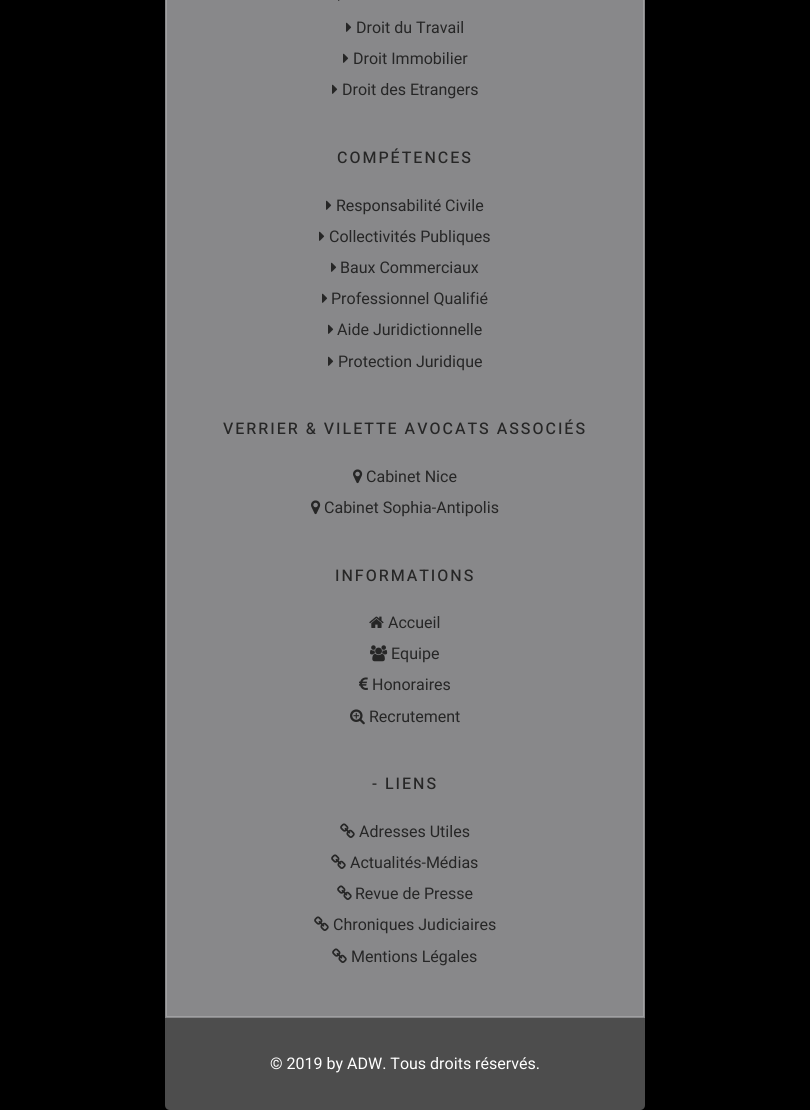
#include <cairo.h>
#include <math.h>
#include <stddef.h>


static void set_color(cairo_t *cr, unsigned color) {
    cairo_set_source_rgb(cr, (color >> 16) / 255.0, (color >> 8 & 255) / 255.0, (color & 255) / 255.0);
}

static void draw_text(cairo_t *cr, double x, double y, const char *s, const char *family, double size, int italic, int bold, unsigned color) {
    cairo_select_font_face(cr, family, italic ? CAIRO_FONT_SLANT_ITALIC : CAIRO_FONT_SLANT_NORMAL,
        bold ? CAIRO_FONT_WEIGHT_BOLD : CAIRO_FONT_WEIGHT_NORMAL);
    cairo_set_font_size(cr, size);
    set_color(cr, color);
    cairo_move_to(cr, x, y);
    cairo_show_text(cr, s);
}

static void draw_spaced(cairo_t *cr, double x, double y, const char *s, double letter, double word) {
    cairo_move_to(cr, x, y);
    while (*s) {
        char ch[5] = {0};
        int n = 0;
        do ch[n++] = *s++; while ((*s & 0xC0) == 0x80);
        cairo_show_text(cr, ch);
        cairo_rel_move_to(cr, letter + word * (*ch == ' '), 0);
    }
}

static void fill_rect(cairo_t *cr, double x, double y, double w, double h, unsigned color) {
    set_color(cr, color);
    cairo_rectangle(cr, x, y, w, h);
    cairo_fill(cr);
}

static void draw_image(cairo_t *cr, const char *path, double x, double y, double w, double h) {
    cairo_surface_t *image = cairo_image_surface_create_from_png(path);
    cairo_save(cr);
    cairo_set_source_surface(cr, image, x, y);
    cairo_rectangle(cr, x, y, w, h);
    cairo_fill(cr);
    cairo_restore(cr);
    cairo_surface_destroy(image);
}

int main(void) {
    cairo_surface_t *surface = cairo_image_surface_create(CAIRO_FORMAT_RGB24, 810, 1110);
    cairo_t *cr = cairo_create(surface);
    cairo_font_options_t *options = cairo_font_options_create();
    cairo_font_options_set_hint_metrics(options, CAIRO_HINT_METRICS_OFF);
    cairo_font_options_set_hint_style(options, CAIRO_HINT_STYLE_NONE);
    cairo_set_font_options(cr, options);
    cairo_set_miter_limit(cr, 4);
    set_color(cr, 0x000000);
    cairo_paint(cr);
    fill_rect(cr, 165, 0, 480, 1018, 0x88888A);
    cairo_rectangle(cr, 166.5, -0.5, 477, 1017);
    set_color(cr, 0xA0A0A2);
    cairo_set_line_width(cr, 1);
    cairo_stroke(cr);
    draw_image(cr, "assets/img1.png", 338, 0, 2, 1);
    draw_image(cr, "assets/img2.png", 346, 22, 6, 10);
    draw_text(cr, 356, 33, "Droit du Travail", "Heebo", 16, 0, 0, 0x262626);
    draw_image(cr, "assets/img2.png", 343, 53, 6, 10);
    draw_text(cr, 353, 64, "Droit Immobilier", "Heebo", 16, 0, 0, 0x262626);
    draw_image(cr, "assets/img2.png", 332, 84, 6, 10);
    draw_text(cr, 342, 95, "Droit des Etrangers", "Heebo", 16, 0, 0, 0x262626);
    cairo_select_font_face(cr, "Heebo Medium", CAIRO_FONT_SLANT_NORMAL, CAIRO_FONT_WEIGHT_NORMAL);
    draw_spaced(cr, 337, 163, "COMPÉTENCES", 2, 0);
    draw_image(cr, "assets/img2.png", 326, 200, 6, 10);
    draw_text(cr, 336, 211, "Responsabilité Civile", "Heebo", 16, 0, 0, 0x262626);
    draw_image(cr, "assets/img2.png", 319, 231, 6, 10);
    draw_text(cr, 329, 242, "Collectivités Publiques", "Heebo", 16, 0, 0, 0x262626);
    draw_image(cr, "assets/img2.png", 331, 262, 6, 10);
    draw_text(cr, 340, 273, "Baux Commerciaux", "Heebo", 16, 0, 0, 0x262626);
    draw_image(cr, "assets/img2.png", 322, 293, 6, 10);
    draw_text(cr, 331, 304, "Professionnel Qualifié", "Heebo", 16, 0, 0, 0x262626);
    draw_image(cr, "assets/img2.png", 328, 324, 6, 10);
    draw_text(cr, 337, 335, "Aide Juridictionnelle", "Heebo", 16, 0, 0, 0x262626);
    draw_image(cr, "assets/img2.png", 328, 356, 6, 10);
    draw_text(cr, 338, 367, "Protection Juridique", "Heebo", 16, 0, 0, 0x262626);
    cairo_select_font_face(cr, "Heebo Medium", CAIRO_FONT_SLANT_NORMAL, CAIRO_FONT_WEIGHT_NORMAL);
    draw_spaced(cr, 223, 434, "VERRIER & VILETTE AVOCATS ASSOCIÉS", 2, 0);
    draw_image(cr, "assets/img3.png", 353, 469, 10, 15);
    draw_text(cr, 366, 482, "Cabinet Nice", "Heebo", 16, 0, 0, 0x262626);
    draw_image(cr, "assets/img3.png", 311, 500, 10, 15);
    draw_text(cr, 324, 513, "Cabinet Sophia-Antipolis", "Heebo", 16, 0, 0, 0x262626);
    cairo_select_font_face(cr, "Heebo Medium", CAIRO_FONT_SLANT_NORMAL, CAIRO_FONT_WEIGHT_NORMAL);
    draw_spaced(cr, 335, 581, "INFORMATIONS", 2, 0);
    draw_image(cr, "assets/img4.png", 369, 616, 15, 12);
    draw_text(cr, 388, 628, "Accueil", "Heebo", 16, 0, 0, 0x262626);
    draw_image(cr, "assets/img5.png", 370, 645, 18, 17);
    draw_text(cr, 391, 659, "Equipe", "Heebo", 16, 0, 0, 0x262626);
    draw_image(cr, "assets/img6.png", 359, 677, 9, 13);
    draw_text(cr, 372, 690, "Honoraires", "Heebo", 16, 0, 0, 0x262626);
    draw_image(cr, "assets/img7.png", 350, 709, 15, 16);
    draw_text(cr, 369, 722, "Recrutement", "Heebo", 16, 0, 0, 0x262626);
    cairo_select_font_face(cr, "Heebo Medium", CAIRO_FONT_SLANT_NORMAL, CAIRO_FONT_WEIGHT_NORMAL);
    draw_spaced(cr, 372, 789, "- LIENS", 2, 0);
    draw_image(cr, "assets/img8.png", 340, 823, 15, 15);
    draw_text(cr, 359, 837, "Adresses Utiles", "Heebo", 16, 0, 0, 0x262626);
    draw_image(cr, "assets/img8.png", 331, 854, 15, 15);
    draw_text(cr, 350, 868, "Actualités-Médias", "Heebo", 16, 0, 0, 0x262626);
    draw_image(cr, "assets/img8.png", 337, 885, 15, 15);
    draw_text(cr, 355, 899, "Revue de Presse", "Heebo", 16, 0, 0, 0x262626);
    draw_image(cr, "assets/img8.png", 314, 916, 15, 15);
    draw_text(cr, 333, 930, "Chroniques Judiciaires", "Heebo", 16, 0, 0, 0x262626);
    draw_image(cr, "assets/img8.png", 332, 948, 15, 15);
    draw_text(cr, 351, 962, "Mentions Légales", "Heebo", 16, 0, 0, 0x262626);
    set_color(cr, 0x4D4D4D);
    cairo_new_path(cr);
    cairo_move_to(cr, 165, 1018);
    cairo_line_to(cr, 645, 1018);
    cairo_line_to(cr, 645, 1105);
    cairo_curve_to(cr, 645, 1108, 643, 1110, 640, 1110);
    cairo_line_to(cr, 170, 1110);
    cairo_curve_to(cr, 167, 1110, 165, 1108, 165, 1105);
    cairo_close_path(cr);
    cairo_fill(cr);
    draw_text(cr, 270, 1069, "© 2019 by ADW. Tous droits réservés.", "Heebo", 16, 0, 0, 0xFFFFFF);
    cairo_surface_write_to_png(surface, "output.png");
    cairo_font_options_destroy(options);
    cairo_destroy(cr);
    cairo_surface_destroy(surface);
    return 0;
}
